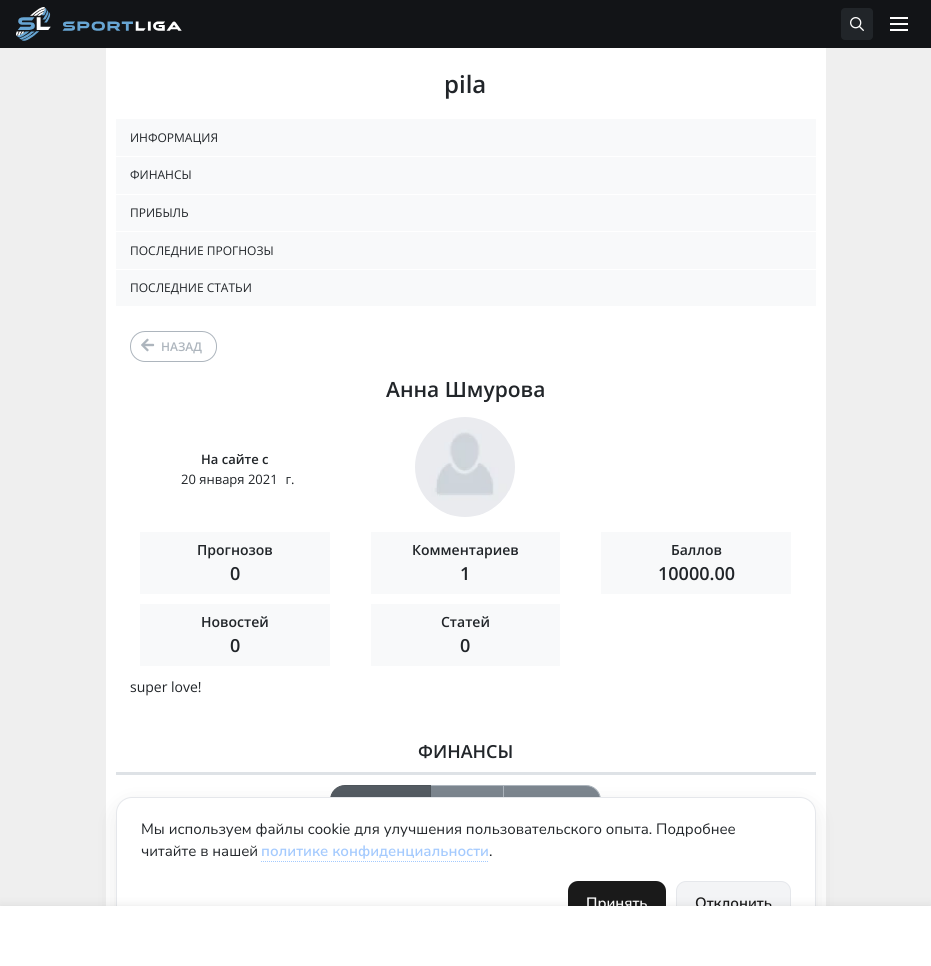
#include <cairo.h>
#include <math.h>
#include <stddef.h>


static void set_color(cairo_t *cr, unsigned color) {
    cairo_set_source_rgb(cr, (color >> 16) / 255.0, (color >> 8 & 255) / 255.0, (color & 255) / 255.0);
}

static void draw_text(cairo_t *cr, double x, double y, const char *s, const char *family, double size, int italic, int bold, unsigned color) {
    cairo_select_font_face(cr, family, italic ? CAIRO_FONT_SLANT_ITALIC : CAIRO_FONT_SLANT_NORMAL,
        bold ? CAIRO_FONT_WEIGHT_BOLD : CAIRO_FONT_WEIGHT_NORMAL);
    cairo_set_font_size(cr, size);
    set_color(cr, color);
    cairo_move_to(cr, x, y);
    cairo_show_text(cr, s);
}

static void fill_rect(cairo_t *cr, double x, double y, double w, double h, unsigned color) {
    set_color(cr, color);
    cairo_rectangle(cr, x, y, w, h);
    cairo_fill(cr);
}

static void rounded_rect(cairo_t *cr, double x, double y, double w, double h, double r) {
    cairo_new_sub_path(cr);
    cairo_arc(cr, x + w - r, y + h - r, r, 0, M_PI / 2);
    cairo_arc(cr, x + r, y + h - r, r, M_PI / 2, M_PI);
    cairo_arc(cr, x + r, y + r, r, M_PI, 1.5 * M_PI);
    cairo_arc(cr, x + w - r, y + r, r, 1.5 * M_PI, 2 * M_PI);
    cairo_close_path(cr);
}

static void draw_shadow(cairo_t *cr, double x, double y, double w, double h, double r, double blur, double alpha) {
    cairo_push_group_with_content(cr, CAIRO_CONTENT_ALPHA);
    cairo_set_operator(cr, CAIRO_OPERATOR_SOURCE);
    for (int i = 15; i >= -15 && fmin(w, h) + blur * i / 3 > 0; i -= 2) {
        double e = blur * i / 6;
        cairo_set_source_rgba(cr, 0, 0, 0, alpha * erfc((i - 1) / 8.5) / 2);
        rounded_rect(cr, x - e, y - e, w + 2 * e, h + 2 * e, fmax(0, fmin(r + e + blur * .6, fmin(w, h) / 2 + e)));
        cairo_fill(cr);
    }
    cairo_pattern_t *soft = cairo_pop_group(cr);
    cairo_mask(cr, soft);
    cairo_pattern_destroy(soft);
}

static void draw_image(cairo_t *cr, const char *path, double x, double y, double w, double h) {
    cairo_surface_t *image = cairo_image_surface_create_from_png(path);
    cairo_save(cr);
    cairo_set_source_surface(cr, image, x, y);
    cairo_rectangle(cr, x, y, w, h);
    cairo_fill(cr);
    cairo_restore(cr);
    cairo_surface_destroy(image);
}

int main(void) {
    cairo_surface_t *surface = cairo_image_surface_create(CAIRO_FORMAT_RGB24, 931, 966);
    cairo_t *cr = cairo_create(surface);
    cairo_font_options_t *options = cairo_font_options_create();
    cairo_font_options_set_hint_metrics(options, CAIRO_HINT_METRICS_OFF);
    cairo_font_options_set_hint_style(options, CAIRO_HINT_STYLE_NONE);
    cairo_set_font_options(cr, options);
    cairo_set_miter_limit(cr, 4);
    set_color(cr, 0xEFEFEF);
    cairo_paint(cr);
    fill_rect(cr, 0, 0, 931, 48, 0x121417);
    draw_image(cr, "assets/img1.png", 16, 7, 166, 34);
    set_color(cr, 0x212529);
    rounded_rect(cr, 841, 8, 32, 32, 4);
    cairo_fill(cr);
    draw_image(cr, "assets/img2.png", 850, 17, 14, 14);
    fill_rect(cr, 890, 17, 18, 2, 0xFFFFFF);
    fill_rect(cr, 890, 23, 18, 2, 0xFFFFFF);
    fill_rect(cr, 890, 29, 18, 2, 0xFFFFFF);
    fill_rect(cr, 106, 48, 720, 858, 0xFFFFFF);
    draw_text(cr, 444, 93, "pila", "Open Sans SemiBold", 24, 0, 0, 0x212529);
    fill_rect(cr, 116, 119, 700, 37, 0xF8F9FA);
    draw_text(cr, 130, 142, "ИНФОРМАЦИЯ", "Open Sans", 12, 0, 0, 0x212529);
    fill_rect(cr, 116, 157, 700, 37, 0xF8F9FA);
    draw_text(cr, 130, 179, "ФИНАНСЫ", "Open Sans", 12, 0, 0, 0x212529);
    fill_rect(cr, 116, 195, 700, 36, 0xF8F9FA);
    draw_text(cr, 130, 217, "ПРИБЫЛЬ", "Open Sans", 12, 0, 0, 0x212529);
    fill_rect(cr, 116, 232, 700, 37, 0xF8F9FA);
    draw_text(cr, 130, 255, "ПОСЛЕДНИЕ ПРОГНОЗЫ", "Open Sans", 12, 0, 0, 0x212529);
    fill_rect(cr, 116, 270, 700, 36, 0xF8F9FA);
    draw_text(cr, 130, 292, "ПОСЛЕДНИЕ СТАТЬИ", "Open Sans", 12, 0, 0, 0x212529);
    rounded_rect(cr, 130.5, 331.5, 86, 30, 14.5);
    set_color(cr, 0xADB5BD);
    cairo_set_line_width(cr, 1);
    cairo_stroke(cr);
    draw_image(cr, "assets/img3.png", 141, 338, 14, 14);
    draw_text(cr, 161, 351, "НАЗАД", "Open Sans SemiBold", 12, 0, 0, 0xADB5BD);
    draw_text(cr, 386, 397, "Анна Шмурова", "Open Sans SemiBold", 21, 0, 0, 0x212529);
    draw_text(cr, 201, 464, "На сайте с", "Open Sans SemiBold", 13, 0, 0, 0x212529);
    draw_text(cr, 181, 484, "20 января 2021 г.", "Open Sans", 13, 0, 0, 0x212529);
    draw_image(cr, "assets/img4.png", 415, 417, 100, 100);
    fill_rect(cr, 140, 532, 190, 62, 0xF8F9FA);
    draw_text(cr, 197, 555, "Прогнозов", "Open Sans SemiBold", 14, 0, 0, 0x212529);
    draw_text(cr, 230, 580, "0", "Open Sans SemiBold", 18, 0, 0, 0x212529);
    fill_rect(cr, 371, 532, 189, 62, 0xF8F9FA);
    draw_text(cr, 412, 555, "Комментариев", "Open Sans SemiBold", 14, 0, 0, 0x212529);
    draw_text(cr, 460, 580, "1", "Open Sans SemiBold", 18, 0, 0, 0x212529);
    fill_rect(cr, 601, 532, 190, 62, 0xF8F9FA);
    draw_text(cr, 671, 555, "Баллов", "Open Sans SemiBold", 14, 0, 0, 0x212529);
    draw_text(cr, 658, 580, "10000.00", "Open Sans SemiBold", 18, 0, 0, 0x212529);
    fill_rect(cr, 140, 604, 190, 62, 0xF8F9FA);
    draw_text(cr, 201, 627, "Новостей", "Open Sans SemiBold", 14, 0, 0, 0x212529);
    draw_text(cr, 230, 652, "0", "Open Sans SemiBold", 18, 0, 0, 0x212529);
    fill_rect(cr, 371, 604, 189, 62, 0xF8F9FA);
    draw_text(cr, 441, 627, "Статей", "Open Sans SemiBold", 14, 0, 0, 0x212529);
    draw_text(cr, 460, 652, "0", "Open Sans SemiBold", 18, 0, 0, 0x212529);
    draw_text(cr, 130, 692, "super love!", "Open Sans", 14, 0, 0, 0x212529);
    fill_rect(cr, 116, 772, 700, 3, 0xDEE2E6);
    draw_text(cr, 418, 758, "ФИНАНСЫ", "Open Sans SemiBold", 18, 0, 0, 0x212529);
    fill_rect(cr, 431, 786, 72, 11, 0x7C868F);
    cairo_rectangle(cr, 430.5, 785.5, 73, 29);
    set_color(cr, 0xADB5BD);
    cairo_stroke(cr);
    set_color(cr, 0x545B62);
    cairo_new_path(cr);
    cairo_move_to(cr, 345, 785.5);
    cairo_line_to(cr, 430.5, 785.5);
    cairo_line_to(cr, 430.5, 814.5);
    cairo_line_to(cr, 345, 814.5);
    cairo_curve_to(cr, 337, 814.5, 330.5, 808, 330.5, 800);
    cairo_curve_to(cr, 330.5, 792, 337, 785.5, 345, 785.5);
    cairo_close_path(cr);
    cairo_fill_preserve(cr);
    set_color(cr, 0x4E555B);
    cairo_stroke(cr);
    set_color(cr, 0x7C868F);
    cairo_new_path(cr);
    cairo_move_to(cr, 503.5, 785.5);
    cairo_line_to(cr, 586, 785.5);
    cairo_curve_to(cr, 594, 785.5, 600.5, 792, 600.5, 800);
    cairo_curve_to(cr, 600.5, 808, 594, 814.5, 586, 814.5);
    cairo_line_to(cr, 503.5, 814.5);
    cairo_close_path(cr);
    cairo_fill_preserve(cr);
    set_color(cr, 0xADB5BD);
    cairo_stroke(cr);
    set_color(cr, 0x000000);
    draw_shadow(cr, 116, 805, 700, 149, 16, 12, 0.08);
    set_color(cr, 0xFFFFFF);
    rounded_rect(cr, 116.5, 797.5, 699, 148, 15.5);
    cairo_fill_preserve(cr);
    set_color(cr, 0xE5E7EB);
    cairo_stroke(cr);
    draw_text(cr, 141, 834, "Мы используем файлы cookie для улучшения пользовательского опыта. Подробнее", "Nunito Sans", 15, 0, 0, 0x212529);
    draw_text(cr, 141, 856, "читайте в нашей", "Nunito Sans", 15, 0, 0, 0x212529);
    draw_text(cr, 261, 856, "политике конфиденциальности", "Nunito Sans SemiBold", 15, 0, 0, 0xA4CAFE);
    cairo_new_path(cr);
    cairo_move_to(cr, 261, 861.5);
    cairo_line_to(cr, 489, 861.5);
    cairo_set_dash(cr, (double[]){1, 1}, 2, 0);
    cairo_stroke(cr);
    draw_text(cr, 489, 856, ".", "Nunito Sans", 15, 0, 0, 0x212529);
    set_color(cr, 0x1A1A1A);
    rounded_rect(cr, 568, 881, 98, 44, 10);
    cairo_fill(cr);
    draw_text(cr, 586, 908, "Принять", "Nunito Sans SemiBold", 15, 0, 0, 0xFFFFFF);
    set_color(cr, 0xF3F4F6);
    rounded_rect(cr, 676.5, 881.5, 114, 43, 9.5);
    cairo_fill_preserve(cr);
    set_color(cr, 0xE5E7EB);
    cairo_set_dash(cr, NULL, 0, 0);
    cairo_stroke(cr);
    draw_text(cr, 695, 908, "Отклонить", "Nunito Sans SemiBold", 15, 0, 0, 0x1A1A1A);
    set_color(cr, 0x000000);
    draw_shadow(cr, 0, 906, 931, 60, 0, 5, 0.1);
    fill_rect(cr, 0, 906, 931, 60, 0xFFFFFF);
    cairo_surface_write_to_png(surface, "output.png");
    cairo_font_options_destroy(options);
    cairo_destroy(cr);
    cairo_surface_destroy(surface);
    return 0;
}
